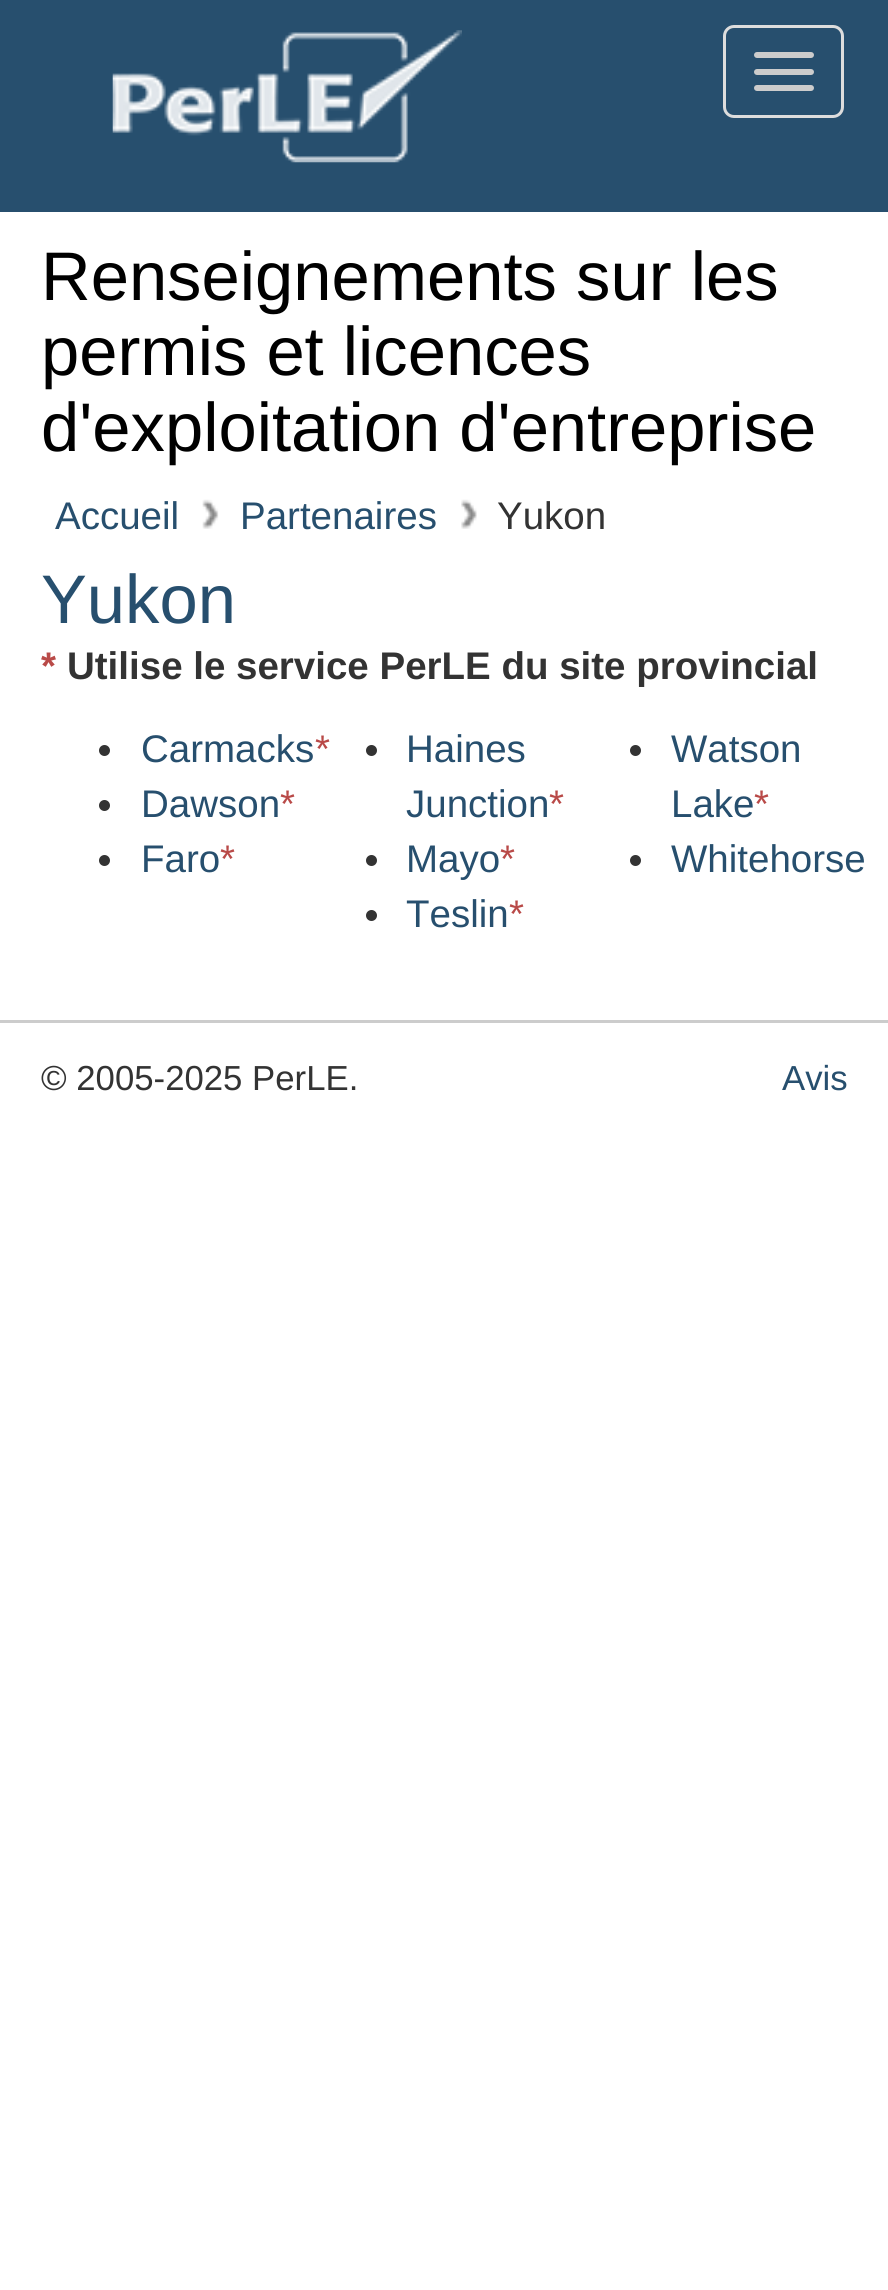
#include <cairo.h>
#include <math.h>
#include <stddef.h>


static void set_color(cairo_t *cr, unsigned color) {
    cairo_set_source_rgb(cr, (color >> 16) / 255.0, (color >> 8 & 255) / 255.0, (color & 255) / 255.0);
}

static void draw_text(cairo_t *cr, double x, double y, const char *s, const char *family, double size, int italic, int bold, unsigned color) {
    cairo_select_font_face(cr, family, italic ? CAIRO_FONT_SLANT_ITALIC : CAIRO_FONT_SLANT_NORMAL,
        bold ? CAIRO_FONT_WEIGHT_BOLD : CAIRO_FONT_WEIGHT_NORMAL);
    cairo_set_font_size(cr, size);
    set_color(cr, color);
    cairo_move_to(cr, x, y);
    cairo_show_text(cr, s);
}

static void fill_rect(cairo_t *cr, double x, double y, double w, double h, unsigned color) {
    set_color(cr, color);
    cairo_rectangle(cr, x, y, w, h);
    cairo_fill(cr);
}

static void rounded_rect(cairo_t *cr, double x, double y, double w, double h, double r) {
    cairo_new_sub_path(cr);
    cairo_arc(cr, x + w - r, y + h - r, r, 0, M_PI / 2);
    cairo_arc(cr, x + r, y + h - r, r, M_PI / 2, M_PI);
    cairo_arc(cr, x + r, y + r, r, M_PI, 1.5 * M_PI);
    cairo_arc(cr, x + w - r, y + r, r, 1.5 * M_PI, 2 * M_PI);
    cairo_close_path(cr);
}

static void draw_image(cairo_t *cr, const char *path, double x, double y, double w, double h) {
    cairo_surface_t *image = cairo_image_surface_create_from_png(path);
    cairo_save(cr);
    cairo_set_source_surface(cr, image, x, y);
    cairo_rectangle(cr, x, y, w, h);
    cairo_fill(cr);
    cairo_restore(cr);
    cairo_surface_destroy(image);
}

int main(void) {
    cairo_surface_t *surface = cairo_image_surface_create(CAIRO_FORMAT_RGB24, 888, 2290);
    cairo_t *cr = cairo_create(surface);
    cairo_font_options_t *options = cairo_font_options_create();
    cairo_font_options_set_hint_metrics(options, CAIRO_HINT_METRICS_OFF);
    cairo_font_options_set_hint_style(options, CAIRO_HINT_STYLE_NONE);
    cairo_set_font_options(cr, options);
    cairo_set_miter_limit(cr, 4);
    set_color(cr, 0xFFFFFF);
    cairo_paint(cr);
    fill_rect(cr, 0, 0, 888, 212, 0x274F6E);
    draw_image(cr, "assets/img1.png", 112, 30, 350, 133);
    rounded_rect(cr, 724.5, 26.5, 118, 90, 9.5);
    set_color(cr, 0xDDDDDD);
    cairo_set_line_width(cr, 3);
    cairo_stroke(cr);
    set_color(cr, 0xCCCCCC);
    rounded_rect(cr, 754, 52, 60, 6, 3);
    cairo_fill(cr);
    rounded_rect(cr, 754, 69, 60, 6, 3);
    cairo_fill(cr);
    rounded_rect(cr, 754, 85, 60, 6, 3);
    cairo_fill(cr);
    draw_text(cr, 41, 300, "Renseignements sur les", "Liberation Sans", 68.75, 0, 0, 0x000000);
    draw_text(cr, 41, 375, "permis et licences", "Liberation Sans", 68.75, 0, 0, 0x000000);
    draw_text(cr, 41, 451, "d'exploitation d'entreprise", "Liberation Sans", 68.75, 0, 0, 0x000000);
    draw_text(cr, 55, 529, "Accueil", "Liberation Sans", 38.5, 0, 0, 0x274F6E);
    draw_image(cr, "assets/img2.png", 202, 499, 17, 30);
    draw_text(cr, 240, 529, "Partenaires", "Liberation Sans", 38.5, 0, 0, 0x274F6E);
    draw_image(cr, "assets/img3.png", 461, 499, 16, 30);
    draw_text(cr, 497, 529, "Yukon", "Liberation Sans", 38.5, 0, 0, 0x333333);
    draw_text(cr, 41, 623, "Yukon", "Liberation Sans", 68.75, 0, 0, 0x274F6E);
    draw_text(cr, 41, 679, "*", "Liberation Sans", 38.5, 0, 1, 0xB94A48);
    draw_text(cr, 67, 679, "Utilise le service PerLE du site provincial", "Liberation Sans", 38.5, 0, 1, 0x333333);
    draw_text(cr, 141, 762, "Carmacks", "Liberation Sans", 38.5, 0, 0, 0x274F6E);
    draw_text(cr, 315, 762, "*", "Liberation Sans", 38.5, 0, 0, 0xB94A48);
    set_color(cr, 0x333333);
    cairo_new_path(cr);
    cairo_arc(cr, 104.5, 750.5, 5.5, 0, 2 * M_PI);
    cairo_fill(cr);
    cairo_arc(cr, 371.5, 750.5, 5.5, 0, 2 * M_PI);
    cairo_fill(cr);
    draw_text(cr, 406, 762, "Haines", "Liberation Sans", 38.5, 0, 0, 0x274F6E);
    draw_text(cr, 406, 817, "Junction", "Liberation Sans", 38.5, 0, 0, 0x274F6E);
    draw_text(cr, 549, 817, "*", "Liberation Sans", 38.5, 0, 0, 0xB94A48);
    set_color(cr, 0x333333);
    cairo_new_path(cr);
    cairo_arc(cr, 635.5, 750.5, 5.5, 0, 2 * M_PI);
    cairo_fill(cr);
    draw_text(cr, 671, 762, "Watson", "Liberation Sans", 38.5, 0, 0, 0x274F6E);
    draw_text(cr, 671, 817, "Lake", "Liberation Sans", 38.5, 0, 0, 0x274F6E);
    draw_text(cr, 754, 817, "*", "Liberation Sans", 38.5, 0, 0, 0xB94A48);
    draw_text(cr, 141, 817, "Dawson", "Liberation Sans", 38.5, 0, 0, 0x274F6E);
    draw_text(cr, 280, 817, "*", "Liberation Sans", 38.5, 0, 0, 0xB94A48);
    set_color(cr, 0x333333);
    cairo_new_path(cr);
    cairo_arc(cr, 104.5, 805.5, 5.5, 0, 2 * M_PI);
    cairo_fill(cr);
    draw_text(cr, 141, 872, "Faro", "Liberation Sans", 38.5, 0, 0, 0x274F6E);
    draw_text(cr, 220, 872, "*", "Liberation Sans", 38.5, 0, 0, 0xB94A48);
    set_color(cr, 0x333333);
    cairo_new_path(cr);
    cairo_arc(cr, 104.5, 860.5, 5.5, 0, 2 * M_PI);
    cairo_fill(cr);
    draw_text(cr, 406, 872, "Mayo", "Liberation Sans", 38.5, 0, 0, 0x274F6E);
    draw_text(cr, 500, 872, "*", "Liberation Sans", 38.5, 0, 0, 0xB94A48);
    set_color(cr, 0x333333);
    cairo_new_path(cr);
    cairo_arc(cr, 371.5, 860.5, 5.5, 0, 2 * M_PI);
    cairo_fill(cr);
    cairo_arc(cr, 635.5, 860.5, 5.5, 0, 2 * M_PI);
    cairo_fill(cr);
    draw_text(cr, 671, 872, "Whitehorse", "Liberation Sans", 38.5, 0, 0, 0x274F6E);
    draw_text(cr, 406, 927, "Teslin", "Liberation Sans", 38.5, 0, 0, 0x274F6E);
    draw_text(cr, 509, 927, "*", "Liberation Sans", 38.5, 0, 0, 0xB94A48);
    set_color(cr, 0x333333);
    cairo_new_path(cr);
    cairo_arc(cr, 371.5, 915.5, 5.5, 0, 2 * M_PI);
    cairo_fill(cr);
    fill_rect(cr, 0, 1020, 888, 3, 0xCCCCCC);
    draw_text(cr, 41, 1090, "© 2005-2025 PerLE.", "Liberation Sans", 34.75, 0, 0, 0x333333);
    draw_text(cr, 782, 1090, "Avis", "Liberation Sans", 34.75, 0, 0, 0x274F6E);
    cairo_surface_write_to_png(surface, "output.png");
    cairo_font_options_destroy(options);
    cairo_destroy(cr);
    cairo_surface_destroy(surface);
    return 0;
}
